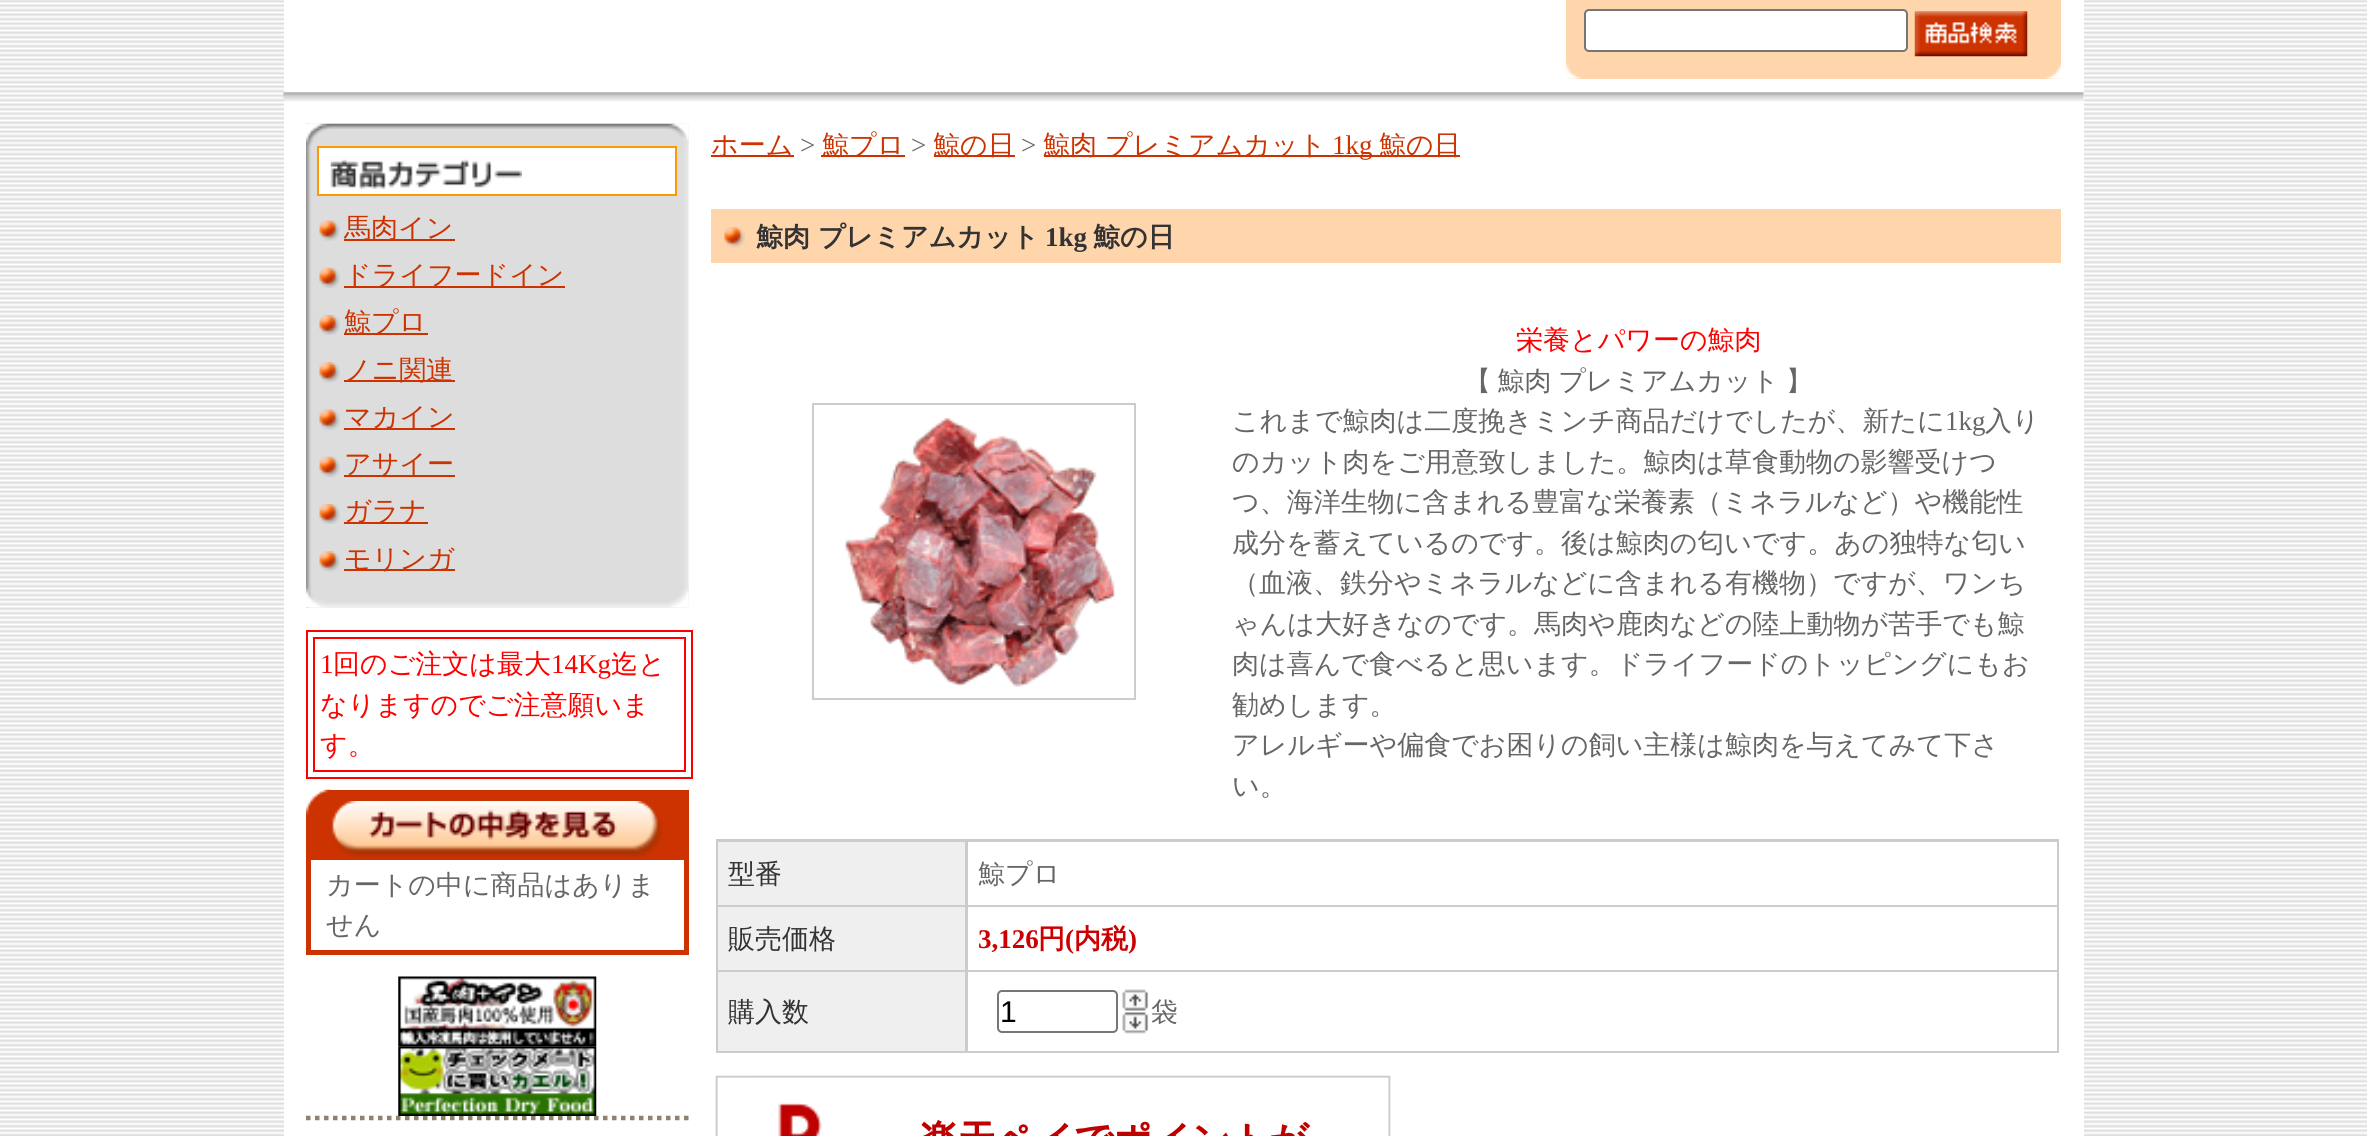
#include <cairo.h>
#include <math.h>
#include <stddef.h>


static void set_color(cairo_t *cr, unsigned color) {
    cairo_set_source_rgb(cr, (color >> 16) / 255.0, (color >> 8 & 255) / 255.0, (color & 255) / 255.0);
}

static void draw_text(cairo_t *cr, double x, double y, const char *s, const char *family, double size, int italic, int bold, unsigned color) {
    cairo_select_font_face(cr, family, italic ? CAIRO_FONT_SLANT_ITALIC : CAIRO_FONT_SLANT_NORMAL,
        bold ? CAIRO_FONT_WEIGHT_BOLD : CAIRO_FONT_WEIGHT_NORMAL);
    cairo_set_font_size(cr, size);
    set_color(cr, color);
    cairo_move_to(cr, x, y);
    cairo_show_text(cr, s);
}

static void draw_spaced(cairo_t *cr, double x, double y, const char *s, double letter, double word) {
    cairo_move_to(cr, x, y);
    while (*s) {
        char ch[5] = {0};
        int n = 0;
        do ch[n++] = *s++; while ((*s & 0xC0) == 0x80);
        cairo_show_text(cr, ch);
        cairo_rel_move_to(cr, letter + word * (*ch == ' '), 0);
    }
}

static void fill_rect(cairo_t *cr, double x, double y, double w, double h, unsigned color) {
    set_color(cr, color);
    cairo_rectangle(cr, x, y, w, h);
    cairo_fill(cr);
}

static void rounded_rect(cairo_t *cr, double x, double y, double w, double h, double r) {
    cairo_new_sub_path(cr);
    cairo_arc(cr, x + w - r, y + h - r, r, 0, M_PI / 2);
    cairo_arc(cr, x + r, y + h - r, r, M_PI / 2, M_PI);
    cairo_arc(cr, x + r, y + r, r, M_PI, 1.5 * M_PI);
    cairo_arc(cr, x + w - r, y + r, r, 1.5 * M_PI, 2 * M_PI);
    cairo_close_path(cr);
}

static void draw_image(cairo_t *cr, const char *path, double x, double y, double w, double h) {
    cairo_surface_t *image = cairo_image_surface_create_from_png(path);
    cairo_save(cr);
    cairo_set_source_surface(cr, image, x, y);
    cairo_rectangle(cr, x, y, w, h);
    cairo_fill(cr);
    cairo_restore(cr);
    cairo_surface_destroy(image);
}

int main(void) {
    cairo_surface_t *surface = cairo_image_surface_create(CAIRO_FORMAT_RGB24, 2367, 1136);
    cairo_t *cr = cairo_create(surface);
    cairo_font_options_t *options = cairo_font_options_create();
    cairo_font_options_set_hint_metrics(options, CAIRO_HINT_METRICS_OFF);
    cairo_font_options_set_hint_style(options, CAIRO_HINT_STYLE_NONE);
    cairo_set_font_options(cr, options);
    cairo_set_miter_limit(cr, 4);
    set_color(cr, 0xDDDDDD);
    cairo_paint(cr);
    draw_image(cr, "assets/img1.png", 0, 0, 2367, 1135);
    fill_rect(cr, 284, 0, 1800, 1136, 0xFFFFFF);
    draw_image(cr, "assets/img2.png", 283, 92, 1801, 10);
    fill_rect(cr, 1566, 0, 495, 79, 0xFFD5AC);
    draw_image(cr, "assets/img3.png", 1566, 63, 495, 16);
    set_color(cr, 0xFFFFFF);
    rounded_rect(cr, 1585, 10, 322, 41, 4);
    cairo_fill_preserve(cr);
    set_color(cr, 0x767676);
    cairo_stroke(cr);
    draw_image(cr, "assets/img4.png", 1914, 11, 114, 46);
    draw_image(cr, "assets/img5.png", 306, 123, 383, 485);
    draw_image(cr, "assets/img6.png", 306, 123, 383, 23);
    set_color(cr, 0xFFFFFF);
    cairo_rectangle(cr, 318, 147, 358, 48);
    cairo_fill_preserve(cr);
    set_color(cr, 0xFF9900);
    cairo_stroke(cr);
    draw_image(cr, "assets/img7.png", 330, 159, 192, 30);
    draw_image(cr, "assets/img8.png", 319, 220, 21, 21);
    fill_rect(cr, 344, 239, 111, 2, 0xCC3300);
    draw_text(cr, 344, 237, "馬肉イン", "WenQuanYi Zen Hei Medium", 27, 0, 0, 0xCC3300);
    draw_image(cr, "assets/img9.png", 319, 267, 21, 21);
    fill_rect(cr, 344, 286, 221, 2, 0xCC3300);
    draw_text(cr, 344, 284, "ドライフードイン", "WenQuanYi Zen Hei Medium", 27, 0, 0, 0xCC3300);
    draw_image(cr, "assets/img10.png", 319, 315, 21, 20);
    fill_rect(cr, 344, 333, 84, 2, 0xCC3300);
    draw_text(cr, 344, 331, "鯨プロ", "WenQuanYi Zen Hei Medium", 27, 0, 0, 0xCC3300);
    draw_image(cr, "assets/img11.png", 319, 362, 21, 21);
    fill_rect(cr, 344, 380, 111, 2, 0xCC3300);
    draw_text(cr, 344, 379, "ノニ関連", "WenQuanYi Zen Hei Medium", 27, 0, 0, 0xCC3300);
    draw_image(cr, "assets/img12.png", 319, 409, 21, 21);
    fill_rect(cr, 344, 428, 111, 2, 0xCC3300);
    draw_text(cr, 344, 426, "マカイン", "WenQuanYi Zen Hei Medium", 27, 0, 0, 0xCC3300);
    draw_image(cr, "assets/img9.png", 319, 456, 21, 21);
    fill_rect(cr, 344, 475, 111, 2, 0xCC3300);
    draw_text(cr, 344, 473, "アサイー", "WenQuanYi Zen Hei Medium", 27, 0, 0, 0xCC3300);
    draw_image(cr, "assets/img10.png", 319, 504, 21, 20);
    fill_rect(cr, 344, 522, 84, 2, 0xCC3300);
    draw_text(cr, 344, 520, "ガラナ", "WenQuanYi Zen Hei Medium", 27, 0, 0, 0xCC3300);
    draw_image(cr, "assets/img11.png", 319, 551, 21, 21);
    fill_rect(cr, 344, 569, 111, 2, 0xCC3300);
    draw_text(cr, 344, 568, "モリンガ", "WenQuanYi Zen Hei Medium", 27, 0, 0, 0xCC3300);
    draw_image(cr, "assets/img13.png", 306, 585, 383, 23);
    cairo_rectangle(cr, 307, 631, 385, 147);
    set_color(cr, 0xFF0000);
    cairo_stroke(cr);
    cairo_rectangle(cr, 314, 638, 371, 133);
    cairo_stroke(cr);
    draw_text(cr, 320, 673, "1", "Liberation Serif", 27, 0, 0, 0xFF0000);
    draw_text(cr, 333, 673, "回のご注文は最大", "WenQuanYi Zen Hei Medium", 27, 0, 0, 0xFF0000);
    draw_text(cr, 551, 673, "14Kg", "Liberation Serif", 27, 0, 0, 0xFF0000);
    draw_text(cr, 611, 673, "迄と", "WenQuanYi Zen Hei Medium", 27, 0, 0, 0xFF0000);
    draw_text(cr, 320, 714, "なりますのでご注意願いま", "WenQuanYi Zen Hei Medium", 27, 0, 0, 0xFF0000);
    draw_text(cr, 320, 754, "す。", "WenQuanYi Zen Hei Medium", 27, 0, 0, 0xFF0000);
    fill_rect(cr, 306, 950, 383, 5, 0xCC3300);
    fill_rect(cr, 306, 790, 383, 70, 0xCC3300);
    draw_image(cr, "assets/img14.png", 306, 789, 26, 27);
    draw_image(cr, "assets/img15.png", 332, 801, 331, 57);
    fill_rect(cr, 684, 860, 5, 90, 0xCC3300);
    fill_rect(cr, 306, 860, 5, 90, 0xCC3300);
    draw_text(cr, 326, 894, "カートの中に商品はありま", "WenQuanYi Zen Hei Medium", 27, 0, 0, 0x666666);
    draw_text(cr, 326, 934, "せん", "WenQuanYi Zen Hei Medium", 27, 0, 0, 0x666666);
    draw_image(cr, "assets/img16.png", 398, 976, 199, 71);
    cairo_new_path(cr);
    cairo_move_to(cr, 306, 1118);
    cairo_line_to(cr, 688.5, 1118);
    set_color(cr, 0x8F826C);
    cairo_set_line_width(cr, 4.5);
    cairo_set_dash(cr, (double[]){4.5, 4.5}, 2, 0);
    cairo_stroke(cr);
    draw_image(cr, "assets/img17.png", 398, 1046, 199, 70);
    fill_rect(cr, 711, 155, 83, 2, 0xCC3300);
    draw_text(cr, 711, 154, "ホーム", "WenQuanYi Zen Hei Medium", 27, 0, 0, 0xCC3300);
    draw_text(cr, 800, 154, ">", "Liberation Serif", 27, 0, 0, 0x666666);
    fill_rect(cr, 821, 155, 84, 2, 0xCC3300);
    draw_text(cr, 822, 154, "鯨プロ", "WenQuanYi Zen Hei Medium", 27, 0, 0, 0xCC3300);
    draw_text(cr, 911, 154, ">", "Liberation Serif", 27, 0, 0, 0x666666);
    fill_rect(cr, 934, 155, 81, 2, 0xCC3300);
    draw_text(cr, 933, 154, "鯨の日", "WenQuanYi Zen Hei Medium", 27, 0, 0, 0xCC3300);
    draw_text(cr, 1021, 154, ">", "Liberation Serif", 27, 0, 0, 0x666666);
    fill_rect(cr, 1044, 155, 416, 2, 0xCC3300);
    draw_text(cr, 1043, 154, "鯨肉 プレミアムカット", "WenQuanYi Zen Hei Medium", 27, 0, 0, 0xCC3300);
    draw_text(cr, 1332, 154, "1kg", "Liberation Serif", 27, 0, 0, 0xCC3300);
    draw_text(cr, 1379, 154, "鯨の日", "WenQuanYi Zen Hei Medium", 27, 0, 0, 0xCC3300);
    fill_rect(cr, 711, 209, 1350, 54, 0xFFD5AC);
    draw_image(cr, "assets/img18.png", 724, 227, 21, 21);
    draw_text(cr, 756, 246, "鯨肉 プレミアムカット", "WenQuanYi Zen Hei", 27, 0, 1, 0x333333);
    draw_text(cr, 1045, 246, "1kg", "Liberation Serif", 27, 0, 1, 0x333333);
    draw_text(cr, 1093, 246, "鯨の日", "WenQuanYi Zen Hei", 27, 0, 1, 0x333333);
    cairo_rectangle(cr, 813, 404, 322, 295);
    set_color(cr, 0xCCCCCC);
    cairo_set_line_width(cr, 2);
    cairo_set_dash(cr, NULL, 0, 0);
    cairo_stroke(cr);
    draw_image(cr, "assets/img19.png", 845, 418, 270, 269);
    draw_text(cr, 1516, 349, "栄養とパワーの鯨肉", "WenQuanYi Zen Hei Medium", 27, 0, 0, 0xFF0000);
    set_color(cr, 0x666666);
    draw_spaced(cr, 1464, 390, "【 鯨肉 プレミアムカット 】", 0, -1.5);
    draw_text(cr, 1232, 430, "これまで鯨肉は二度挽きミンチ商品だけでしたが、新たに", "WenQuanYi Zen Hei Medium", 27, 0, 0, 0x666666);
    draw_text(cr, 1945, 430, "1kg", "Liberation Serif", 27, 0, 0, 0x666666);
    draw_text(cr, 1985, 430, "入り", "WenQuanYi Zen Hei Medium", 27, 0, 0, 0x666666);
    draw_text(cr, 1232, 471, "のカット肉をご用意致しました。鯨肉は草食動物の影響受けつ", "WenQuanYi Zen Hei Medium", 27, 0, 0, 0x666666);
    draw_text(cr, 1232, 511, "つ、海洋生物に含まれる豊富な栄養素（ミネラルなど）や機能性", "WenQuanYi Zen Hei Medium", 27, 0, 0, 0x666666);
    draw_text(cr, 1232, 552, "成分を蓄えているのです。後は鯨肉の匂いです。あの独特な匂い", "WenQuanYi Zen Hei Medium", 27, 0, 0, 0x666666);
    draw_text(cr, 1232, 592, "（血液、鉄分やミネラルなどに含まれる有機物）ですが、ワンち", "WenQuanYi Zen Hei Medium", 27, 0, 0, 0x666666);
    draw_text(cr, 1232, 633, "ゃんは大好きなのです。馬肉や鹿肉などの陸上動物が苦手でも鯨", "WenQuanYi Zen Hei Medium", 27, 0, 0, 0x666666);
    draw_text(cr, 1232, 673, "肉は喜んで食べると思います。ドライフードのトッピングにもお", "WenQuanYi Zen Hei Medium", 27, 0, 0, 0x666666);
    draw_text(cr, 1232, 714, "勧めします。", "WenQuanYi Zen Hei Medium", 27, 0, 0, 0x666666);
    draw_text(cr, 1232, 754, "アレルギーや偏食でお困りの飼い主様は鯨肉を与えてみて下さ", "WenQuanYi Zen Hei Medium", 27, 0, 0, 0x666666);
    draw_text(cr, 1232, 795, "い。", "WenQuanYi Zen Hei Medium", 27, 0, 0, 0x666666);
    fill_rect(cr, 716, 839, 1343, 214, 0xCCCCCC);
    fill_rect(cr, 718, 842, 247, 63, 0xEFEFEF);
    draw_text(cr, 728, 883, "型番", "WenQuanYi Zen Hei Medium", 27, 0, 0, 0x333333);
    fill_rect(cr, 968, 842, 1089, 63, 0xFFFFFF);
    draw_text(cr, 978, 883, "鯨プロ", "WenQuanYi Zen Hei Medium", 27, 0, 0, 0x666666);
    fill_rect(cr, 718, 907, 247, 63, 0xEFEFEF);
    draw_text(cr, 728, 948, "販売価格", "WenQuanYi Zen Hei Medium", 27, 0, 0, 0x333333);
    fill_rect(cr, 968, 907, 1089, 63, 0xFFFFFF);
    draw_text(cr, 978, 948, "3,126", "Liberation Serif", 27, 0, 1, 0xCC0000);
    draw_text(cr, 1038, 948, "円", "WenQuanYi Zen Hei", 27, 0, 1, 0xCC0000);
    draw_text(cr, 1065, 948, "(", "Liberation Serif", 27, 0, 1, 0xCC0000);
    draw_text(cr, 1074, 948, "内税", "WenQuanYi Zen Hei", 27, 0, 1, 0xCC0000);
    draw_text(cr, 1128, 948, ")", "Liberation Serif", 27, 0, 1, 0xCC0000);
    fill_rect(cr, 718, 972, 247, 79, 0xEFEFEF);
    draw_text(cr, 728, 1021, "購入数", "WenQuanYi Zen Hei Medium", 27, 0, 0, 0x333333);
    fill_rect(cr, 968, 972, 1089, 79, 0xFFFFFF);
    rounded_rect(cr, 998, 991, 119, 41, 4);
    set_color(cr, 0x767676);
    cairo_stroke(cr);
    draw_text(cr, 1000, 1022, "1", "Liberation Sans", 30, 0, 0, 0x000000);
    draw_image(cr, "assets/img20.png", 1122, 989, 27, 22);
    draw_image(cr, "assets/img21.png", 1122, 1012, 27, 22);
    draw_text(cr, 1151, 1021, "袋", "WenQuanYi Zen Hei Medium", 27, 0, 0, 0x666666);
    draw_image(cr, "assets/img22.png", 715, 1075, 676, 61);
    cairo_surface_write_to_png(surface, "output.png");
    cairo_font_options_destroy(options);
    cairo_destroy(cr);
    cairo_surface_destroy(surface);
    return 0;
}
